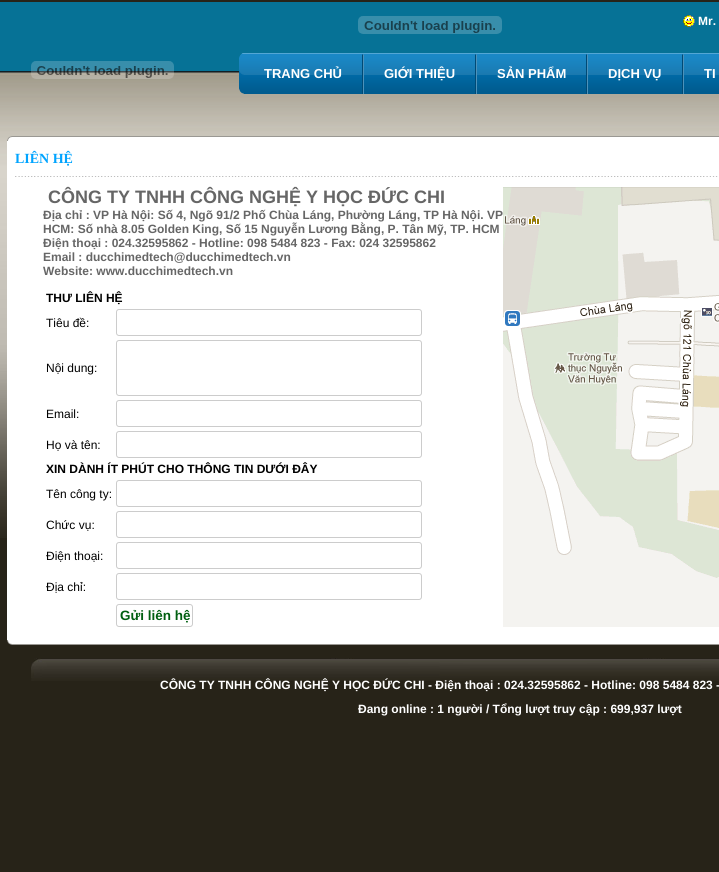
#include <cairo.h>
#include <math.h>
#include <stddef.h>


static void set_color(cairo_t *cr, unsigned color) {
    cairo_set_source_rgb(cr, (color >> 16) / 255.0, (color >> 8 & 255) / 255.0, (color & 255) / 255.0);
}

static void draw_text(cairo_t *cr, double x, double y, const char *s, const char *family, double size, int italic, int bold, unsigned color) {
    cairo_select_font_face(cr, family, italic ? CAIRO_FONT_SLANT_ITALIC : CAIRO_FONT_SLANT_NORMAL,
        bold ? CAIRO_FONT_WEIGHT_BOLD : CAIRO_FONT_WEIGHT_NORMAL);
    cairo_set_font_size(cr, size);
    set_color(cr, color);
    cairo_move_to(cr, x, y);
    cairo_show_text(cr, s);
}

static void fill_rect(cairo_t *cr, double x, double y, double w, double h, unsigned color) {
    set_color(cr, color);
    cairo_rectangle(cr, x, y, w, h);
    cairo_fill(cr);
}

static void rounded_rect(cairo_t *cr, double x, double y, double w, double h, double r) {
    cairo_new_sub_path(cr);
    cairo_arc(cr, x + w - r, y + h - r, r, 0, M_PI / 2);
    cairo_arc(cr, x + r, y + h - r, r, M_PI / 2, M_PI);
    cairo_arc(cr, x + r, y + r, r, M_PI, 1.5 * M_PI);
    cairo_arc(cr, x + w - r, y + r, r, 1.5 * M_PI, 2 * M_PI);
    cairo_close_path(cr);
}

static void draw_image(cairo_t *cr, const char *path, double x, double y, double w, double h) {
    cairo_surface_t *image = cairo_image_surface_create_from_png(path);
    cairo_save(cr);
    cairo_set_source_surface(cr, image, x, y);
    cairo_rectangle(cr, x, y, w, h);
    cairo_fill(cr);
    cairo_restore(cr);
    cairo_surface_destroy(image);
}

int main(void) {
    cairo_surface_t *surface = cairo_image_surface_create(CAIRO_FORMAT_RGB24, 719, 872);
    cairo_t *cr = cairo_create(surface);
    cairo_font_options_t *options = cairo_font_options_create();
    cairo_font_options_set_hint_metrics(options, CAIRO_HINT_METRICS_OFF);
    cairo_font_options_set_hint_style(options, CAIRO_HINT_STYLE_NONE);
    cairo_set_font_options(cr, options);
    cairo_set_miter_limit(cr, 4);
    set_color(cr, 0x272318);
    cairo_paint(cr);
    draw_image(cr, "assets/img1.png", 0, 2, 719, 536);
    draw_image(cr, "assets/img2.png", 358, 16, 144, 18);
    draw_image(cr, "assets/img3.png", 683, 15, 12, 12);
    draw_text(cr, 698, 25, "Mr.", "Liberation Sans", 12, 0, 1, 0xFFFFFF);
    draw_image(cr, "assets/img4.png", 31, 61, 143, 18);
    draw_image(cr, "assets/img5.png", 239, 53, 5, 41);
    draw_image(cr, "assets/img6.png", 244, 53, 475, 41);
    draw_text(cr, 264, 78, "TRANG CHỦ", "Liberation Sans", 13, 0, 1, 0xFFFFFF);
    draw_image(cr, "assets/img7.png", 362, 54, 2, 40);
    draw_text(cr, 384, 78, "GIỚI THIỆU", "Liberation Sans", 13, 0, 1, 0xFFFFFF);
    draw_image(cr, "assets/img7.png", 475, 54, 2, 40);
    draw_text(cr, 497, 78, "SẢN PHẨM", "Liberation Sans", 13, 0, 1, 0xFFFFFF);
    draw_image(cr, "assets/img7.png", 586, 54, 2, 40);
    draw_text(cr, 608, 78, "DỊCH VỤ", "Liberation Sans", 13, 0, 1, 0xFFFFFF);
    draw_image(cr, "assets/img7.png", 682, 54, 2, 40);
    draw_text(cr, 704, 78, "TI", "Liberation Sans", 13, 0, 1, 0xFFFFFF);
    draw_image(cr, "assets/img8.png", 7, 136, 712, 5);
    fill_rect(cr, 7, 141, 712, 499, 0xFFFFFF);
    draw_image(cr, "assets/img9.png", 15, 176, 703, 1);
    draw_text(cr, 15, 163, "LIÊN HỆ", "Liberation Serif", 14, 0, 1, 0x00A4FF);
    draw_text(cr, 48, 203, "CÔNG TY TNHH CÔNG NGHỆ Y HỌC ĐỨC CHI", "Liberation Sans", 18, 0, 1, 0x666666);
    draw_text(cr, 43, 219, "Địa chỉ : VP Hà Nội: Số 4, Ngõ 91/2 Phố Chùa Láng, Phường Láng, TP Hà Nội. VP", "Liberation Sans", 12, 0, 1, 0x666666);
    draw_text(cr, 43, 233, "HCM: Số nhà 8.05 Golden King, Số 15 Nguyễn Lương Bằng, P. Tân Mỹ, TP. HCM", "Liberation Sans", 12, 0, 1, 0x666666);
    draw_text(cr, 43, 247, "Điện thoại : 024.32595862 - Hotline: 098 5484 823 - Fax: 024 32595862", "Liberation Sans", 12, 0, 1, 0x666666);
    draw_text(cr, 43, 261, "Email : ducchimedtech@ducchimedtech.vn", "Liberation Sans", 12, 0, 1, 0x666666);
    draw_text(cr, 43, 275, "Website: www.ducchimedtech.vn", "Liberation Sans", 12, 0, 1, 0x666666);
    draw_text(cr, 46, 302, "THƯ LIÊN HỆ", "Liberation Sans", 12, 0, 1, 0x000000);
    draw_text(cr, 46, 327, "Tiêu đề:", "Liberation Sans", 12, 0, 0, 0x000000);
    rounded_rect(cr, 116.5, 309.5, 305, 26, 2.5);
    set_color(cr, 0xCCCCCC);
    cairo_set_line_width(cr, 1);
    cairo_stroke(cr);
    draw_text(cr, 46, 372, "Nội dung:", "Liberation Sans", 12, 0, 0, 0x000000);
    rounded_rect(cr, 116.5, 340.5, 305, 55, 2.5);
    set_color(cr, 0xCCCCCC);
    cairo_stroke(cr);
    draw_text(cr, 46, 418, "Email:", "Liberation Sans", 12, 0, 0, 0x000000);
    rounded_rect(cr, 116.5, 400.5, 305, 26, 2.5);
    set_color(cr, 0xCCCCCC);
    cairo_stroke(cr);
    draw_text(cr, 46, 449, "Họ và tên:", "Liberation Sans", 12, 0, 0, 0x000000);
    rounded_rect(cr, 116.5, 431.5, 305, 26, 2.5);
    set_color(cr, 0xCCCCCC);
    cairo_stroke(cr);
    draw_text(cr, 46, 473, "XIN DÀNH ÍT PHÚT CHO THÔNG TIN DƯỚI ĐÂY", "Liberation Sans", 12, 0, 1, 0x000000);
    draw_text(cr, 46, 498, "Tên công ty:", "Liberation Sans", 12, 0, 0, 0x000000);
    rounded_rect(cr, 116.5, 480.5, 305, 26, 2.5);
    set_color(cr, 0xCCCCCC);
    cairo_stroke(cr);
    draw_text(cr, 46, 529, "Chức vụ:", "Liberation Sans", 12, 0, 0, 0x000000);
    rounded_rect(cr, 116.5, 511.5, 305, 26, 2.5);
    set_color(cr, 0xCCCCCC);
    cairo_stroke(cr);
    draw_text(cr, 46, 560, "Điện thoại:", "Liberation Sans", 12, 0, 0, 0x000000);
    rounded_rect(cr, 116.5, 542.5, 305, 26, 2.5);
    set_color(cr, 0xCCCCCC);
    cairo_stroke(cr);
    draw_text(cr, 46, 591, "Địa chỉ:", "Liberation Sans", 12, 0, 0, 0x000000);
    rounded_rect(cr, 116.5, 573.5, 305, 26, 2.5);
    set_color(cr, 0xCCCCCC);
    cairo_stroke(cr);
    rounded_rect(cr, 116.5, 604.5, 76, 22, 2.5);
    cairo_stroke(cr);
    draw_text(cr, 120, 620, "Gửi liên hệ", "Liberation Sans", 13.5, 0, 1, 0x005F10);
    draw_image(cr, "assets/img10.png", 503, 187, 216, 440);
    draw_image(cr, "assets/img11.png", 7, 640, 712, 5);
    draw_image(cr, "assets/img12.png", 31, 658, 688, 23);
    draw_text(cr, 160, 689, "CÔNG TY TNHH CÔNG NGHỆ Y HỌC ĐỨC CHI - Điện thoại : 024.32595862 - Hotline: 098 5484 823 -", "Liberation Sans", 12, 0, 1, 0xFFFFFF);
    draw_text(cr, 358, 713, "Đang online : 1 người / Tổng lượt truy cập : 699,937 lượt", "Liberation Sans", 12, 0, 1, 0xFFFFFF);
    cairo_surface_write_to_png(surface, "output.png");
    cairo_font_options_destroy(options);
    cairo_destroy(cr);
    cairo_surface_destroy(surface);
    return 0;
}
